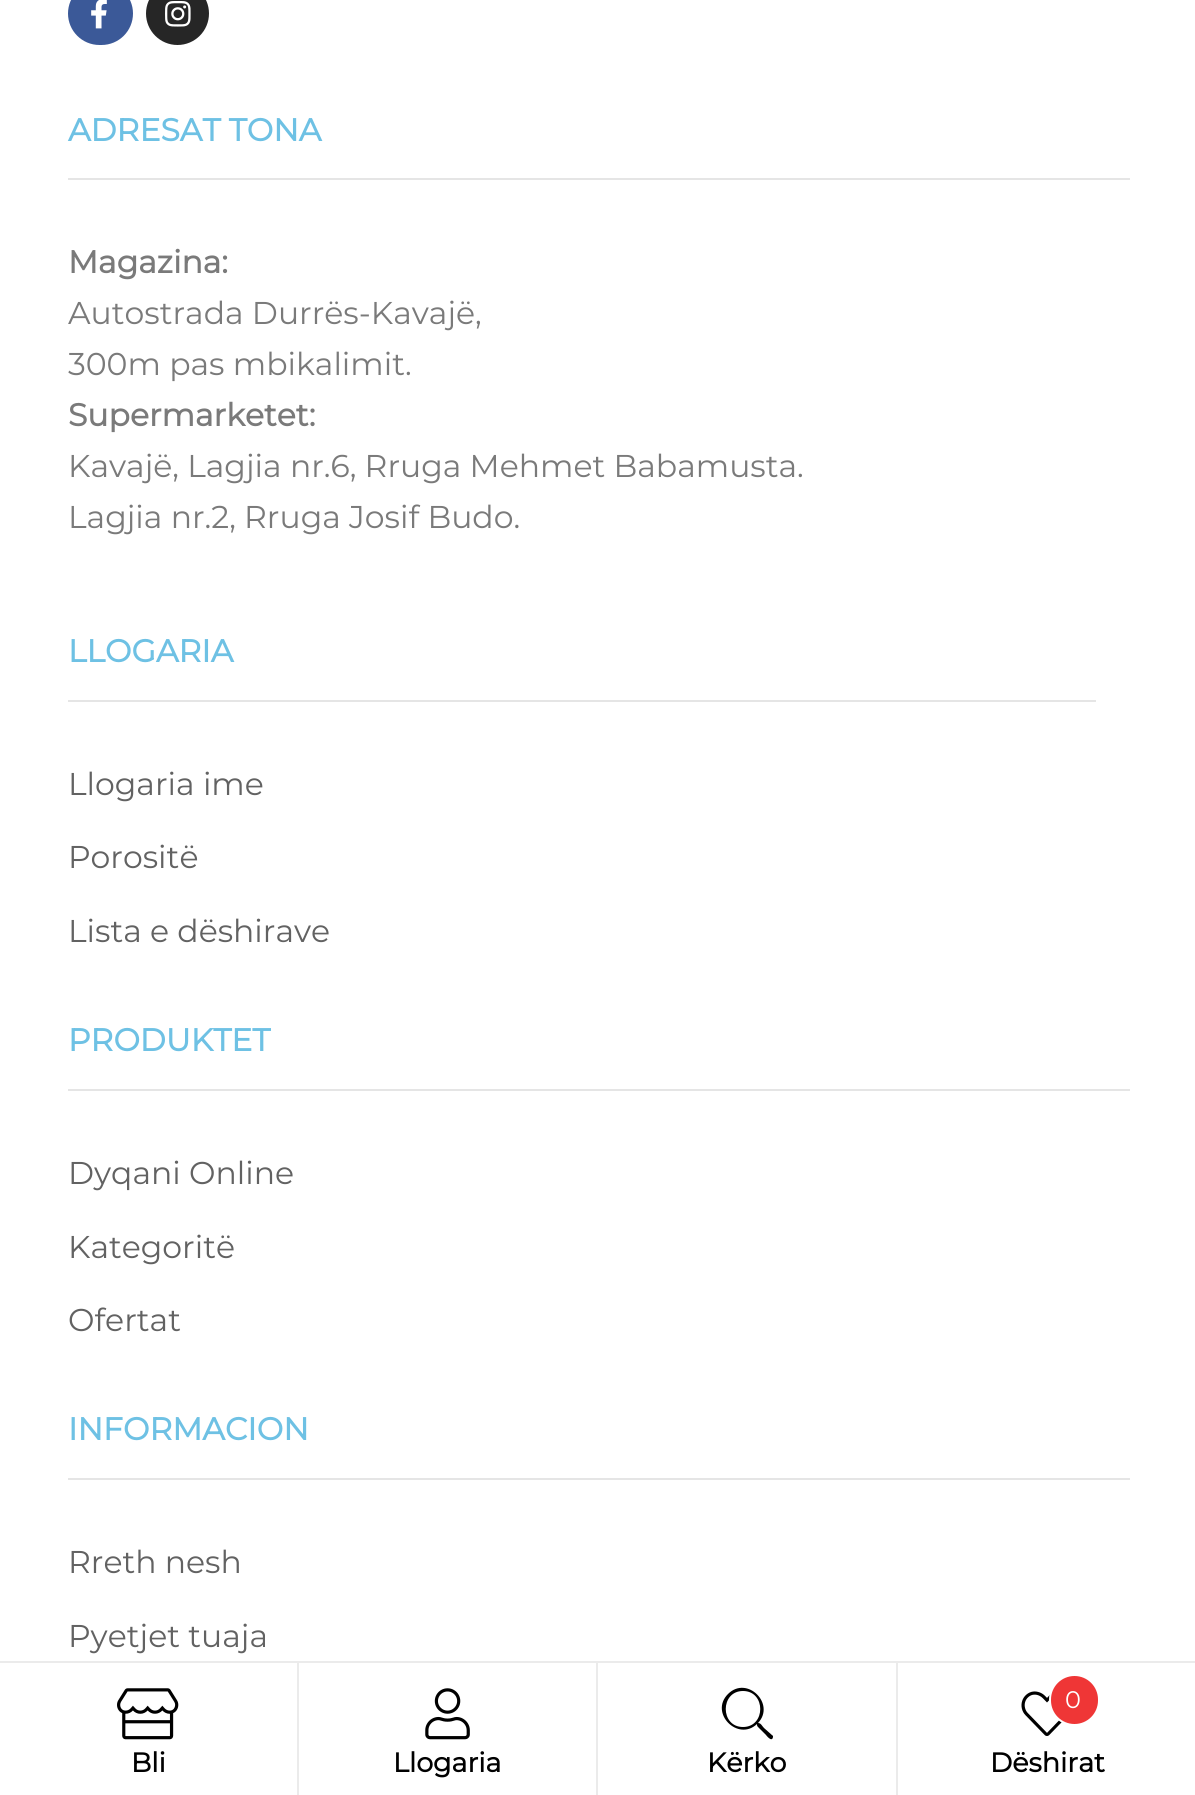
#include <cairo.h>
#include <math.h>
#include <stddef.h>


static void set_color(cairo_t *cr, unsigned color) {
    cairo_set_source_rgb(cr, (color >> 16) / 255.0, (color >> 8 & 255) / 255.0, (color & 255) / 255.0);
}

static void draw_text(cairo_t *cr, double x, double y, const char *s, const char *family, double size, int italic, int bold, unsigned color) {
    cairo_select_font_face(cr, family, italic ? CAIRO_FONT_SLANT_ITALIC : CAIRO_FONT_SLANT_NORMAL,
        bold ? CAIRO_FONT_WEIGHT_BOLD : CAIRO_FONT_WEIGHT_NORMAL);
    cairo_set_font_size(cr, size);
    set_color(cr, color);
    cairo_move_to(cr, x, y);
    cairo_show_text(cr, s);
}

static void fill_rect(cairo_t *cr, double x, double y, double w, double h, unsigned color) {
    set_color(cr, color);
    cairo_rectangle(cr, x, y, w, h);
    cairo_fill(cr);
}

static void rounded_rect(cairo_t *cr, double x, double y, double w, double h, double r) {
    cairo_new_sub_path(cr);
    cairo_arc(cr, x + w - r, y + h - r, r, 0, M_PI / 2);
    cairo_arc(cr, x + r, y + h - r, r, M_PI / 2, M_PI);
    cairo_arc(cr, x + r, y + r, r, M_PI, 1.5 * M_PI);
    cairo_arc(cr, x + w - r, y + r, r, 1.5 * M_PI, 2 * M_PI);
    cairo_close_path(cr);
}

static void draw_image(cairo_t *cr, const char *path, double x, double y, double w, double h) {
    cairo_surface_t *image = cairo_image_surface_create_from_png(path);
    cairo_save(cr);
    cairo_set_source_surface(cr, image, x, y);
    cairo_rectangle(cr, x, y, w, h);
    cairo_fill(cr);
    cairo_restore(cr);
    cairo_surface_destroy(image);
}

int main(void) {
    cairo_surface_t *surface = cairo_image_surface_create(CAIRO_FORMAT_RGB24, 1195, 1795);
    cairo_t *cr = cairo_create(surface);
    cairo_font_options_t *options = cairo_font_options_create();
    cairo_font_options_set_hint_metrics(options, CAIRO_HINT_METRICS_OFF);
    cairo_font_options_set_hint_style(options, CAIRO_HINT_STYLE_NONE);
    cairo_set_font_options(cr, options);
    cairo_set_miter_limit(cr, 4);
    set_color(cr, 0xFFFFFF);
    cairo_paint(cr);
    set_color(cr, 0x3B5998);
    rounded_rect(cr, 68, -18, 65, 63, 31.5);
    cairo_fill(cr);
    draw_image(cr, "assets/img1.png", 91, 0, 16, 29);
    set_color(cr, 0x262626);
    cairo_arc(cr, 177.5, 13.5, 31.5, 0, 2 * M_PI);
    cairo_fill(cr);
    draw_image(cr, "assets/img2.png", 165, 1, 26, 26);
    fill_rect(cr, 68, 178, 1062, 2, 0xE5E5E5);
    draw_text(cr, 68, 141, "ADRESAT TONA", "Montserrat", 31.5, 0, 1, 0x6EC1E4);
    draw_text(cr, 68, 273, "Magazina:", "Montserrat", 31.5, 0, 1, 0x7A7A7A);
    draw_text(cr, 68, 324, "Autostrada Durrës-Kavajë,", "Montserrat Thin", 31.5, 0, 0, 0x7A7A7A);
    draw_text(cr, 68, 375, "300m pas mbikalimit.", "Montserrat Thin", 31.5, 0, 0, 0x7A7A7A);
    draw_text(cr, 68, 426, "Supermarketet:", "Montserrat", 31.5, 0, 1, 0x7A7A7A);
    draw_text(cr, 68, 477, "Kavajë, Lagjia nr.6, Rruga Mehmet Babamusta.", "Montserrat Thin", 31.5, 0, 0, 0x7A7A7A);
    draw_text(cr, 68, 528, "Lagjia nr.2, Rruga Josif Budo.", "Montserrat Thin", 31.5, 0, 0, 0x7A7A7A);
    fill_rect(cr, 68, 700, 1028, 2, 0xE5E5E5);
    draw_text(cr, 68, 662, "LLOGARIA", "Montserrat", 31.5, 0, 1, 0x6EC1E4);
    draw_text(cr, 68, 795, "Llogaria ime", "Montserrat Thin", 31.5, 0, 0, 0x626262);
    draw_text(cr, 68, 868, "Porositë", "Montserrat Thin", 31.5, 0, 0, 0x626262);
    draw_text(cr, 68, 942, "Lista e dëshirave", "Montserrat Thin", 31.5, 0, 0, 0x626262);
    fill_rect(cr, 68, 1089, 1062, 2, 0xE5E5E5);
    draw_text(cr, 68, 1051, "PRODUKTET", "Montserrat", 31.5, 0, 1, 0x6EC1E4);
    draw_text(cr, 68, 1184, "Dyqani Online", "Montserrat Thin", 31.5, 0, 0, 0x626262);
    draw_text(cr, 68, 1258, "Kategoritë", "Montserrat Thin", 31.5, 0, 0, 0x626262);
    draw_text(cr, 68, 1331, "Ofertat", "Montserrat Thin", 31.5, 0, 0, 0x626262);
    fill_rect(cr, 68, 1478, 1062, 2, 0xE5E5E5);
    draw_text(cr, 68, 1440, "INFORMACION", "Montserrat", 31.5, 0, 1, 0x6EC1E4);
    draw_text(cr, 68, 1573, "Rreth nesh", "Montserrat Thin", 31.5, 0, 0, 0x626262);
    draw_text(cr, 68, 1647, "Pyetjet tuaja", "Montserrat Thin", 31.5, 0, 0, 0x626262);
    fill_rect(cr, 0, 1661, 1195, 2, 0xEBEBEB);
    fill_rect(cr, 297, 1663, 2, 132, 0xEBEBEB);
    draw_image(cr, "assets/img3.png", 117, 1688, 62, 52);
    draw_text(cr, 131, 1772, "Bli", "Montserrat", 27, 0, 1, 0x000000);
    fill_rect(cr, 596, 1663, 2, 132, 0xEBEBEB);
    draw_image(cr, "assets/img4.png", 425, 1688, 45, 52);
    draw_text(cr, 393, 1772, "Llogaria", "Montserrat", 27, 0, 1, 0x000000);
    fill_rect(cr, 896, 1663, 2, 132, 0xEBEBEB);
    set_color(cr, 0x000000);
    cairo_new_path(cr);
    cairo_move_to(cr, 773, 1736);
    cairo_line_to(cr, 764, 1728);
    cairo_curve_to(cr, 762, 1726, 761, 1723, 758, 1723);
    cairo_curve_to(cr, 776, 1704, 747, 1675, 728, 1694);
    cairo_curve_to(cr, 709, 1713, 738, 1742, 757, 1724);
    cairo_curve_to(cr, 757, 1726, 757, 1726, 759, 1728);
    cairo_line_to(cr, 766, 1735);
    cairo_curve_to(cr, 766, 1735, 772, 1743, 773, 1737);
    cairo_close_path(cr);
    cairo_move_to(cr, 743, 1727);
    cairo_curve_to(cr, 720, 1727, 720, 1691, 743, 1691);
    cairo_curve_to(cr, 766, 1691, 766, 1727, 743, 1727);
    cairo_close_path(cr);
    cairo_fill(cr);
    draw_text(cr, 707, 1772, "Kërko", "Montserrat", 27, 0, 1, 0x000000);
    draw_image(cr, "assets/img5.png", 1021, 1691, 41, 45);
    set_color(cr, 0xEF3636);
    rounded_rect(cr, 1050, 1675, 49, 50, 24.5);
    cairo_fill_preserve(cr);
    set_color(cr, 0xFFFFFF);
    cairo_stroke(cr);
    draw_text(cr, 1065, 1708, "0", "Montserrat Thin", 24, 0, 0, 0xFFFFFF);
    draw_text(cr, 990, 1772, "Dëshirat", "Montserrat", 27, 0, 1, 0x000000);
    cairo_surface_write_to_png(surface, "output.png");
    cairo_font_options_destroy(options);
    cairo_destroy(cr);
    cairo_surface_destroy(surface);
    return 0;
}
